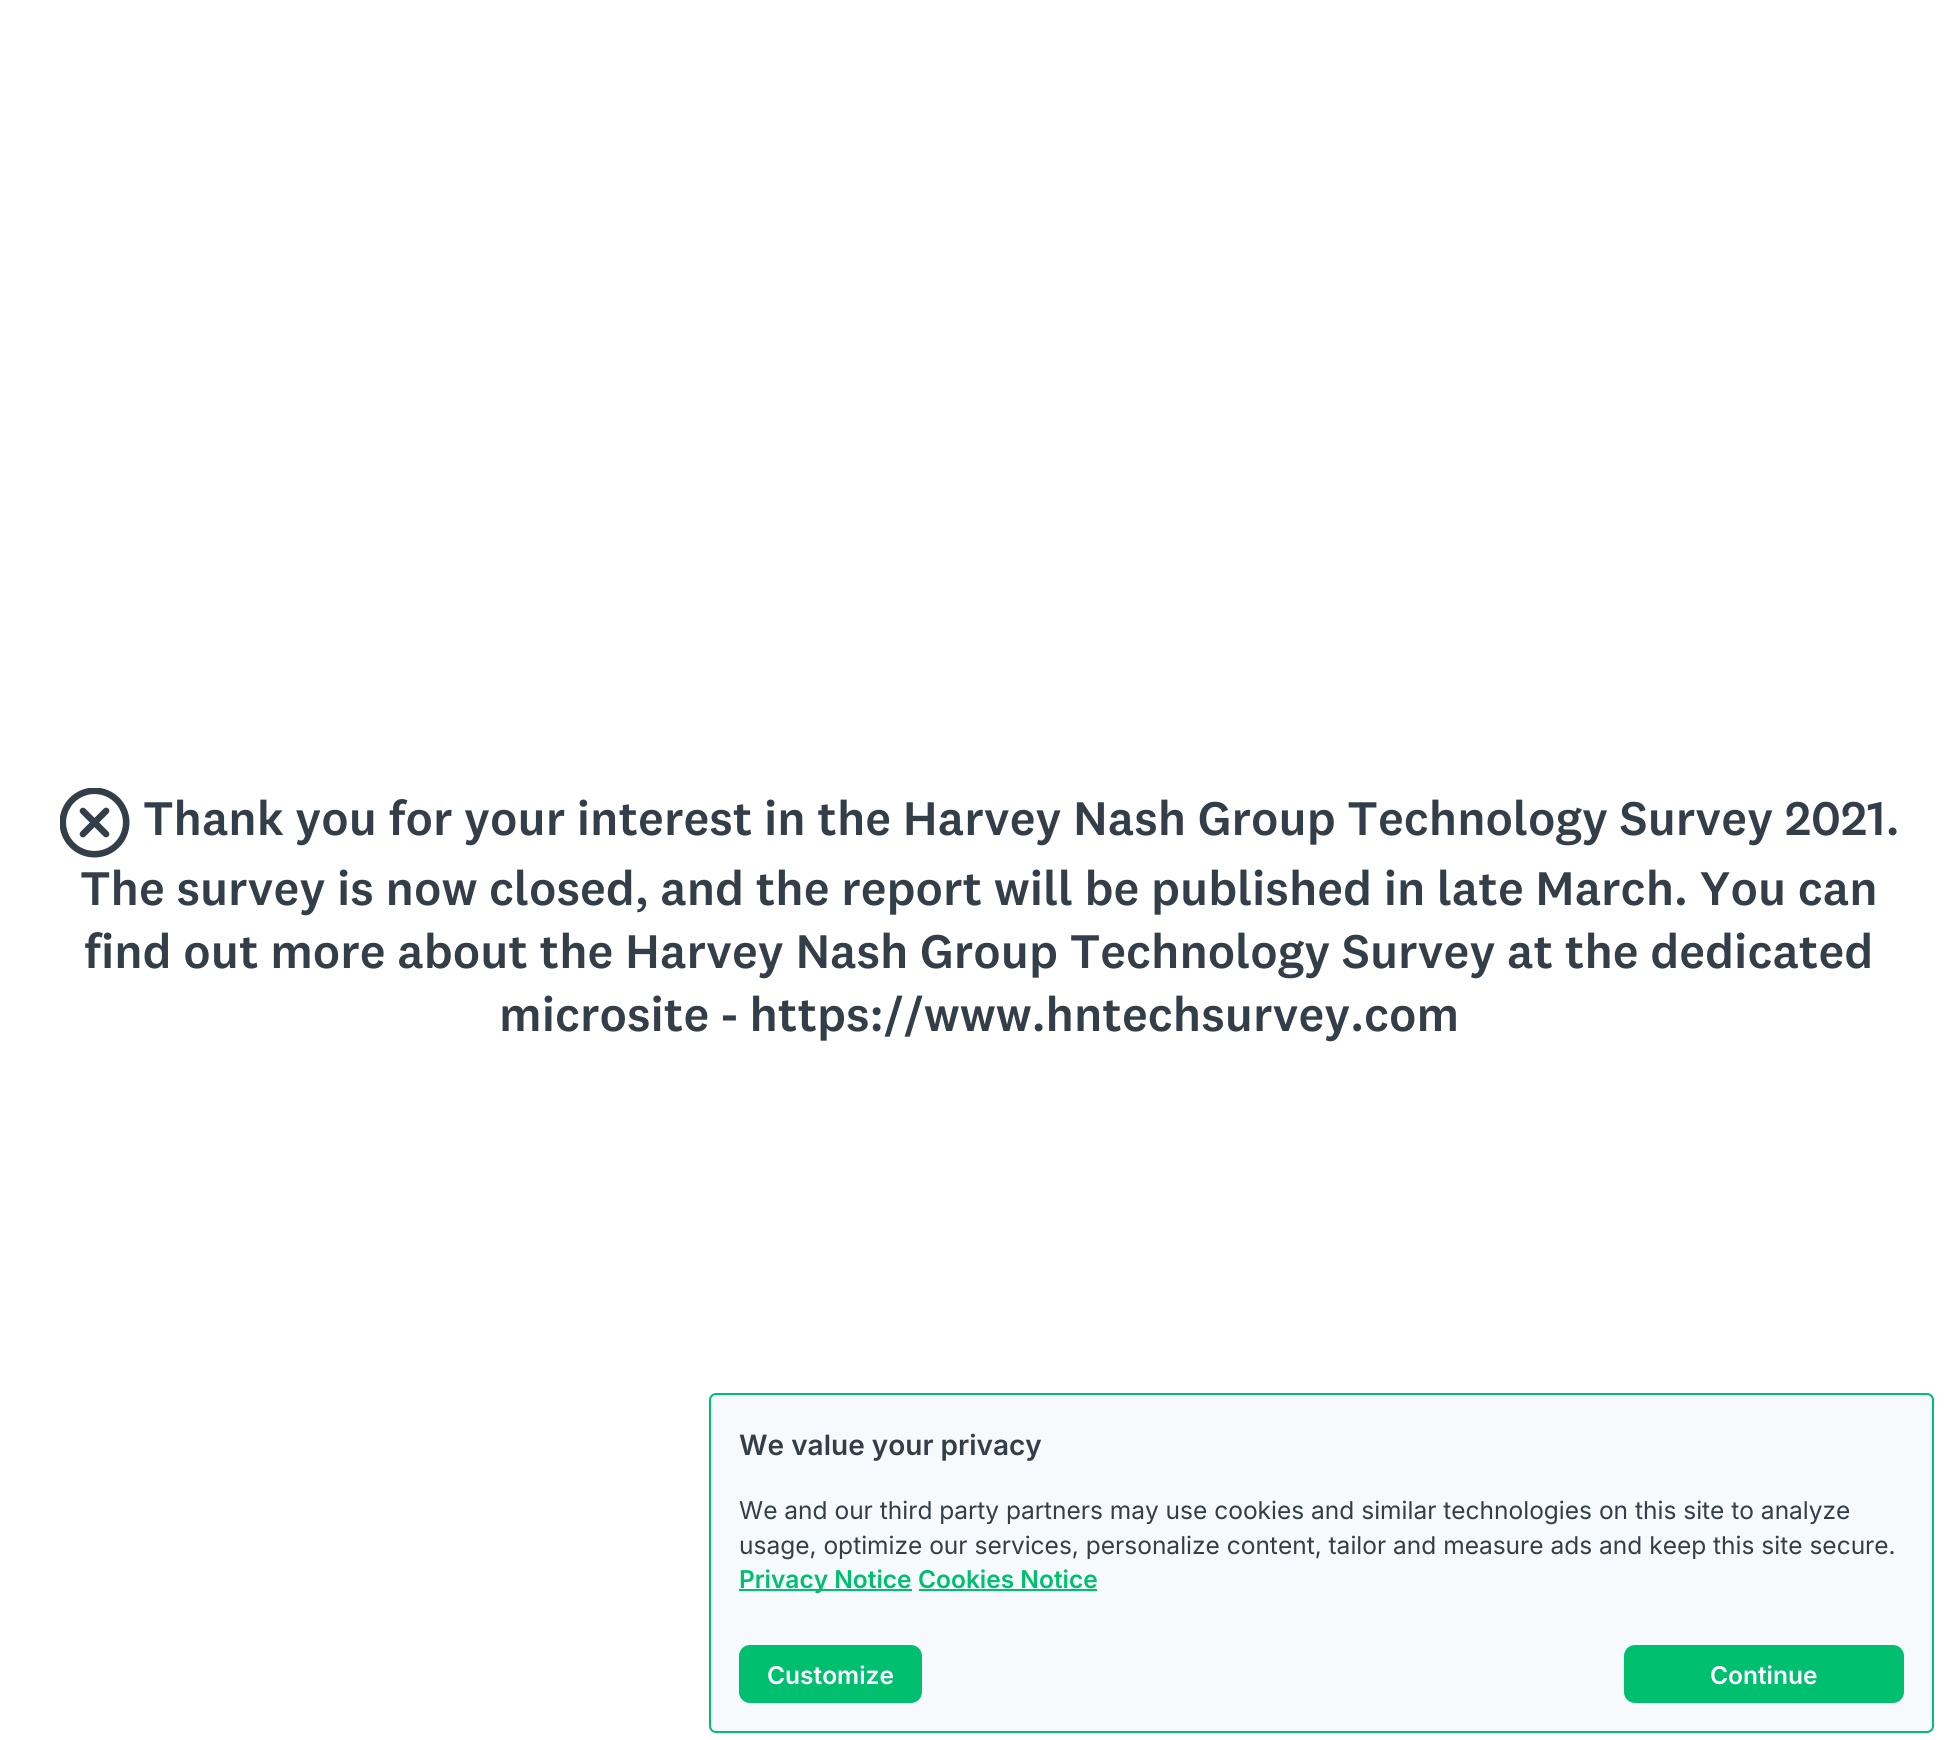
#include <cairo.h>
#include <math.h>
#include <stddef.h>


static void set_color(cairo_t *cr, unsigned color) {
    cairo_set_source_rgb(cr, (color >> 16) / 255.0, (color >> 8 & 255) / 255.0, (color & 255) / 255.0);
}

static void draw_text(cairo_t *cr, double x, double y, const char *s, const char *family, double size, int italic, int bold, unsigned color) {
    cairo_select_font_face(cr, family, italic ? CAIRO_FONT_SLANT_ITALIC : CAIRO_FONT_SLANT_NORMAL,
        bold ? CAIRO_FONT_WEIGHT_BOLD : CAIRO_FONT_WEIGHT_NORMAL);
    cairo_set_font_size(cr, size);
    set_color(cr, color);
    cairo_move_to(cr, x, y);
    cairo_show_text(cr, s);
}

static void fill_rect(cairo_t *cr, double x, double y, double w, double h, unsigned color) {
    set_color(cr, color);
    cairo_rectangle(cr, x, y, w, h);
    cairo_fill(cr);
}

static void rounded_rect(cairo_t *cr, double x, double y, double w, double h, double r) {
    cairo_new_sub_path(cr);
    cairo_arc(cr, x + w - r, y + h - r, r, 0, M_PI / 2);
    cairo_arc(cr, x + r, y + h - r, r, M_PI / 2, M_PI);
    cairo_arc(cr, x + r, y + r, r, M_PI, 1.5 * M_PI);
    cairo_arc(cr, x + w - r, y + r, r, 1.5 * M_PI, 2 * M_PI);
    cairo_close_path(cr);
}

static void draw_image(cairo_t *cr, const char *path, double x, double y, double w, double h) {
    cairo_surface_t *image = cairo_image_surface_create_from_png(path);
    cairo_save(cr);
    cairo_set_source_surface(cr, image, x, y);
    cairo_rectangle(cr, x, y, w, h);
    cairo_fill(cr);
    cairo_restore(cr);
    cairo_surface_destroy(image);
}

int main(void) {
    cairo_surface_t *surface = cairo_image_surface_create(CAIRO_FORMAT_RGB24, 1958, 1740);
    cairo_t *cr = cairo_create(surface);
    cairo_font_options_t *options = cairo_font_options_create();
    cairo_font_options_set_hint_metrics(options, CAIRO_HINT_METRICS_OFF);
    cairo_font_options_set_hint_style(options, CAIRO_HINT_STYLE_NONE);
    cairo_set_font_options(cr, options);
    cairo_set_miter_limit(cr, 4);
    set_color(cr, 0xFFFFFF);
    cairo_paint(cr);
    draw_image(cr, "assets/img1.png", 60, 788, 70, 70);
    draw_text(cr, 143, 835, "Thank you for your interest in the Harvey Nash Group Technology Survey 2021.", "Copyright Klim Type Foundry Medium", 49, 0, 0, 0x333E48);
    draw_text(cr, 80, 905, "The survey is now closed, and the report will be published in late March. You can", "Copyright Klim Type Foundry Medium", 49, 0, 0, 0x333E48);
    draw_text(cr, 84, 968, "find out more about the Harvey Nash Group Technology Survey at the dedicated", "Copyright Klim Type Foundry Medium", 49, 0, 0, 0x333E48);
    draw_text(cr, 499, 1031, "microsite - https://www.hntechsurvey.com", "Copyright Klim Type Foundry Medium", 49, 0, 0, 0x333E48);
    set_color(cr, 0xF7FAFC);
    rounded_rect(cr, 710, 1394, 1223, 338, 6);
    cairo_fill_preserve(cr);
    set_color(cr, 0x00BF6F);
    cairo_stroke(cr);
    draw_text(cr, 739, 1455, "We value your privacy", "Inter SemiBold", 28, 0, 0, 0x333E48);
    draw_text(cr, 739, 1519, "We and our third party partners may use cookies and similar technologies on this site to analyze", "Inter", 24.5, 0, 0, 0x333E48);
    draw_text(cr, 739, 1554, "usage, optimize our services, personalize content, tailor and measure ads and keep this site secure.", "Inter", 24.5, 0, 0, 0x333E48);
    fill_rect(cr, 739, 1589, 173, 2, 0x00BF6F);
    draw_text(cr, 739, 1588, "Privacy Notice", "Inter SemiBold", 24.5, 0, 0, 0x00BF6F);
    draw_text(cr, 918, 1588, "Cookies Notice", "Inter SemiBold", 24.5, 0, 0, 0x00BF6F);
    fill_rect(cr, 919, 1589, 178, 2, 0x00BF6F);
    rounded_rect(cr, 739, 1645, 183, 58, 11);
    cairo_fill(cr);
    draw_text(cr, 767, 1684, "Customize", "Inter SemiBold", 24.5, 0, 0, 0xFFFFFF);
    set_color(cr, 0x00BF6F);
    rounded_rect(cr, 1624, 1645, 280, 58, 11);
    cairo_fill(cr);
    draw_text(cr, 1710, 1684, "Continue", "Inter SemiBold", 24.5, 0, 0, 0xFFFFFF);
    cairo_surface_write_to_png(surface, "output.png");
    cairo_font_options_destroy(options);
    cairo_destroy(cr);
    cairo_surface_destroy(surface);
    return 0;
}
